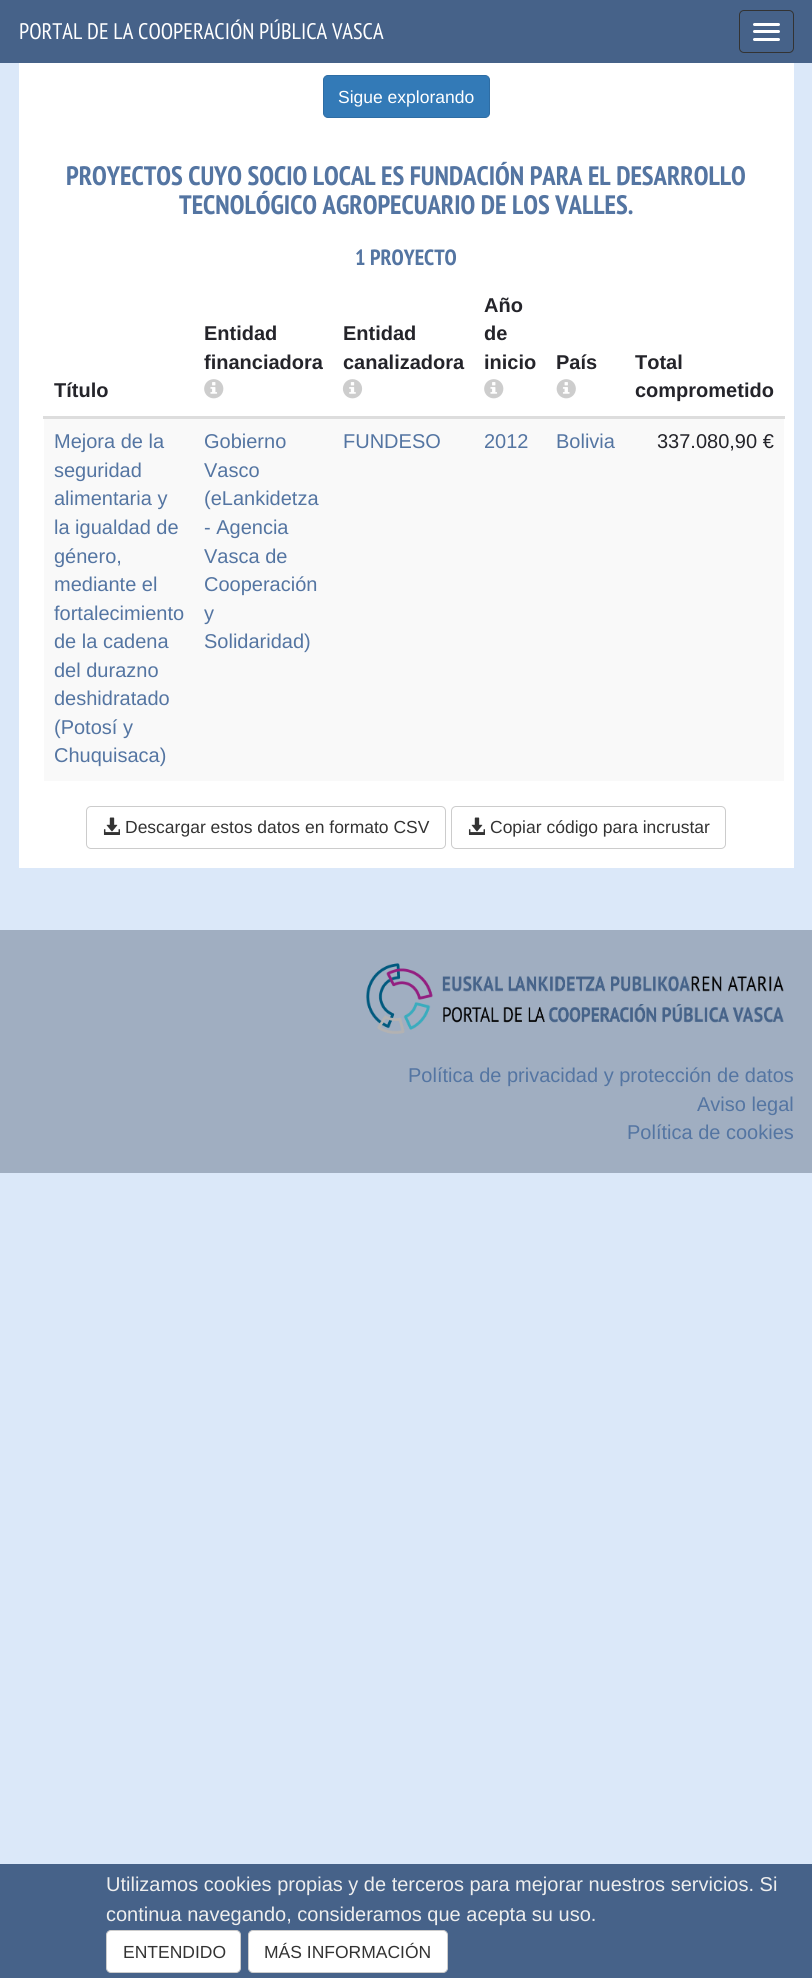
#include <cairo.h>
#include <math.h>
#include <stddef.h>


static void set_color(cairo_t *cr, unsigned color) {
    cairo_set_source_rgb(cr, (color >> 16) / 255.0, (color >> 8 & 255) / 255.0, (color & 255) / 255.0);
}

static void draw_text(cairo_t *cr, double x, double y, const char *s, const char *family, double size, int italic, int bold, unsigned color) {
    cairo_select_font_face(cr, family, italic ? CAIRO_FONT_SLANT_ITALIC : CAIRO_FONT_SLANT_NORMAL,
        bold ? CAIRO_FONT_WEIGHT_BOLD : CAIRO_FONT_WEIGHT_NORMAL);
    cairo_set_font_size(cr, size);
    set_color(cr, color);
    cairo_move_to(cr, x, y);
    cairo_show_text(cr, s);
}

static void fill_rect(cairo_t *cr, double x, double y, double w, double h, unsigned color) {
    set_color(cr, color);
    cairo_rectangle(cr, x, y, w, h);
    cairo_fill(cr);
}

static void rounded_rect(cairo_t *cr, double x, double y, double w, double h, double r) {
    cairo_new_sub_path(cr);
    cairo_arc(cr, x + w - r, y + h - r, r, 0, M_PI / 2);
    cairo_arc(cr, x + r, y + h - r, r, M_PI / 2, M_PI);
    cairo_arc(cr, x + r, y + r, r, M_PI, 1.5 * M_PI);
    cairo_arc(cr, x + w - r, y + r, r, 1.5 * M_PI, 2 * M_PI);
    cairo_close_path(cr);
}

static void draw_image(cairo_t *cr, const char *path, double x, double y, double w, double h) {
    cairo_surface_t *image = cairo_image_surface_create_from_png(path);
    cairo_save(cr);
    cairo_set_source_surface(cr, image, x, y);
    cairo_rectangle(cr, x, y, w, h);
    cairo_fill(cr);
    cairo_restore(cr);
    cairo_surface_destroy(image);
}

int main(void) {
    cairo_surface_t *surface = cairo_image_surface_create(CAIRO_FORMAT_RGB24, 812, 1978);
    cairo_t *cr = cairo_create(surface);
    cairo_font_options_t *options = cairo_font_options_create();
    cairo_font_options_set_hint_metrics(options, CAIRO_HINT_METRICS_OFF);
    cairo_font_options_set_hint_style(options, CAIRO_HINT_STYLE_NONE);
    cairo_set_font_options(cr, options);
    cairo_set_miter_limit(cr, 4);
    set_color(cr, 0xDBE8F9);
    cairo_paint(cr);
    fill_rect(cr, 0, 0, 812, 63, 0x466289);
    draw_text(cr, 19, 39, "PORTAL DE LA COOPERACIÓN PÚBLICA VASCA", "PT Sans Narrow", 22.5, 0, 0, 0xFFFFFF);
    rounded_rect(cr, 739.5, 10.5, 54, 42, 4.5);
    set_color(cr, 0x333333);
    cairo_set_line_width(cr, 1);
    cairo_stroke(cr);
    set_color(cr, 0xFFFFFF);
    rounded_rect(cr, 753, 23, 27, 3, 1.5);
    cairo_fill(cr);
    rounded_rect(cr, 753, 30, 27, 3, 1.5);
    cairo_fill(cr);
    rounded_rect(cr, 753, 38, 27, 3, 1.5);
    cairo_fill(cr);
    fill_rect(cr, 19, 63, 775, 805, 0xFFFFFF);
    set_color(cr, 0x337AB7);
    rounded_rect(cr, 323.5, 75.5, 166, 42, 4.5);
    cairo_fill_preserve(cr);
    set_color(cr, 0x2E6DA4);
    cairo_stroke(cr);
    draw_text(cr, 338, 103, "Sigue explorando", "Liberation Sans", 17.5, 0, 0, 0xFFFFFF);
    draw_text(cr, 66, 185, "PROYECTOS CUYO SOCIO LOCAL ES FUNDACIÓN PARA EL DESARROLLO", "PT Sans Narrow", 26.65, 0, 1, 0x5475A2);
    draw_text(cr, 179, 214, "TECNOLÓGICO AGROPECUARIO DE LOS VALLES.", "PT Sans Narrow", 26.65, 0, 1, 0x5475A2);
    draw_text(cr, 355, 265, "1 PROYECTO", "PT Sans Narrow", 22, 0, 1, 0x5475A2);
    draw_text(cr, 54, 397, "Título", "Liberation Sans", 20, 0, 1, 0x24242A);
    draw_text(cr, 204, 340, "Entidad", "Liberation Sans", 20, 0, 1, 0x24242A);
    draw_text(cr, 204, 369, "financiadora", "Liberation Sans", 20, 0, 1, 0x24242A);
    draw_image(cr, "assets/img1.png", 204, 379, 20, 20);
    draw_text(cr, 343, 340, "Entidad", "Liberation Sans", 20, 0, 1, 0x24242A);
    draw_text(cr, 343, 369, "canalizadora", "Liberation Sans", 20, 0, 1, 0x24242A);
    draw_image(cr, "assets/img2.png", 342, 379, 21, 20);
    draw_text(cr, 484, 312, "Año", "Liberation Sans", 20, 0, 1, 0x24242A);
    draw_text(cr, 484, 340, "de", "Liberation Sans", 20, 0, 1, 0x24242A);
    draw_text(cr, 484, 369, "inicio", "Liberation Sans", 20, 0, 1, 0x24242A);
    draw_image(cr, "assets/img1.png", 484, 379, 20, 20);
    draw_text(cr, 556, 369, "País", "Liberation Sans", 20, 0, 1, 0x24242A);
    draw_image(cr, "assets/img3.png", 556, 379, 20, 20);
    fill_rect(cr, 43, 416, 742, 3, 0xDDDDDD);
    draw_text(cr, 635, 369, "Total", "Liberation Sans", 20, 0, 1, 0x24242A);
    draw_text(cr, 635, 397, "comprometido", "Liberation Sans", 20, 0, 1, 0x24242A);
    fill_rect(cr, 44, 419, 740, 362, 0xF9F9F9);
    draw_text(cr, 54, 448, "Mejora de la", "Liberation Sans", 20, 0, 0, 0x5475A2);
    draw_text(cr, 54, 477, "seguridad", "Liberation Sans", 20, 0, 0, 0x5475A2);
    draw_text(cr, 54, 505, "alimentaria y", "Liberation Sans", 20, 0, 0, 0x5475A2);
    draw_text(cr, 54, 534, "la igualdad de", "Liberation Sans", 20, 0, 0, 0x5475A2);
    draw_text(cr, 54, 563, "género,", "Liberation Sans", 20, 0, 0, 0x5475A2);
    draw_text(cr, 54, 591, "mediante el", "Liberation Sans", 20, 0, 0, 0x5475A2);
    draw_text(cr, 54, 620, "fortalecimiento", "Liberation Sans", 20, 0, 0, 0x5475A2);
    draw_text(cr, 54, 648, "de la cadena", "Liberation Sans", 20, 0, 0, 0x5475A2);
    draw_text(cr, 54, 677, "del durazno", "Liberation Sans", 20, 0, 0, 0x5475A2);
    draw_text(cr, 54, 705, "deshidratado", "Liberation Sans", 20, 0, 0, 0x5475A2);
    draw_text(cr, 54, 734, "(Potosí y", "Liberation Sans", 20, 0, 0, 0x5475A2);
    draw_text(cr, 54, 762, "Chuquisaca)", "Liberation Sans", 20, 0, 0, 0x5475A2);
    draw_text(cr, 204, 448, "Gobierno", "Liberation Sans", 20, 0, 0, 0x5475A2);
    draw_text(cr, 204, 477, "Vasco", "Liberation Sans", 20, 0, 0, 0x5475A2);
    draw_text(cr, 204, 505, "(eLankidetza", "Liberation Sans", 20, 0, 0, 0x5475A2);
    draw_text(cr, 204, 534, "- Agencia", "Liberation Sans", 20, 0, 0, 0x5475A2);
    draw_text(cr, 204, 563, "Vasca de", "Liberation Sans", 20, 0, 0, 0x5475A2);
    draw_text(cr, 204, 591, "Cooperación", "Liberation Sans", 20, 0, 0, 0x5475A2);
    draw_text(cr, 204, 620, "y", "Liberation Sans", 20, 0, 0, 0x5475A2);
    draw_text(cr, 204, 648, "Solidaridad)", "Liberation Sans", 20, 0, 0, 0x5475A2);
    draw_text(cr, 343, 448, "FUNDESO", "Liberation Sans", 20, 0, 0, 0x5475A2);
    draw_text(cr, 484, 448, "2012", "Liberation Sans", 20, 0, 0, 0x5475A2);
    draw_text(cr, 556, 448, "Bolivia", "Liberation Sans", 20, 0, 0, 0x5475A2);
    draw_text(cr, 657, 448, "337.080,90 €", "Liberation Sans", 20, 0, 0, 0x24242A);
    rounded_rect(cr, 86.5, 806.5, 359, 42, 4.5);
    set_color(cr, 0xCCCCCC);
    cairo_stroke(cr);
    draw_image(cr, "assets/img4.png", 103, 817, 17, 18);
    draw_text(cr, 125, 833, "Descargar estos datos en formato CSV", "Liberation Sans", 17.5, 0, 0, 0x333333);
    rounded_rect(cr, 451.5, 806.5, 274, 42, 4.5);
    set_color(cr, 0xCCCCCC);
    cairo_stroke(cr);
    draw_image(cr, "assets/img4.png", 468, 817, 17, 18);
    draw_text(cr, 490, 833, "Copiar código para incrustar", "Liberation Sans", 17.5, 0, 0, 0x333333);
    fill_rect(cr, 0, 930, 812, 243, 0xA0AEC1);
    draw_image(cr, "assets/img5.png", 366, 963, 418, 71);
    draw_text(cr, 408, 1082, "Política de privacidad y protección de datos", "Liberation Sans", 20, 0, 0, 0x5475A2);
    draw_text(cr, 697, 1111, "Aviso legal", "Liberation Sans", 20, 0, 0, 0x5475A2);
    draw_text(cr, 627, 1139, "Política de cookies", "Liberation Sans", 20, 0, 0, 0x5475A2);
    fill_rect(cr, 0, 1864, 812, 114, 0x466289);
    draw_text(cr, 106, 1891, "Utilizamos cookies propias y de terceros para mejorar nuestros servicios. Si", "Liberation Sans", 20, 0, 0, 0xEEEEEE);
    draw_text(cr, 106, 1921, "continua navegando, consideramos que acepta su uso.", "Liberation Sans", 20, 0, 0, 0xEEEEEE);
    set_color(cr, 0xFFFFFF);
    rounded_rect(cr, 106.5, 1930.5, 134, 42, 4.5);
    cairo_fill_preserve(cr);
    set_color(cr, 0xCCCCCC);
    cairo_stroke(cr);
    draw_text(cr, 123, 1958, "ENTENDIDO", "Liberation Sans", 17.5, 0, 0, 0x333333);
    set_color(cr, 0xFFFFFF);
    rounded_rect(cr, 248.5, 1930.5, 199, 42, 4.5);
    cairo_fill_preserve(cr);
    set_color(cr, 0xCCCCCC);
    cairo_stroke(cr);
    draw_text(cr, 264, 1958, "MÁS INFORMACIÓN", "Liberation Sans", 17.5, 0, 0, 0x333333);
    cairo_surface_write_to_png(surface, "output.png");
    cairo_font_options_destroy(options);
    cairo_destroy(cr);
    cairo_surface_destroy(surface);
    return 0;
}
